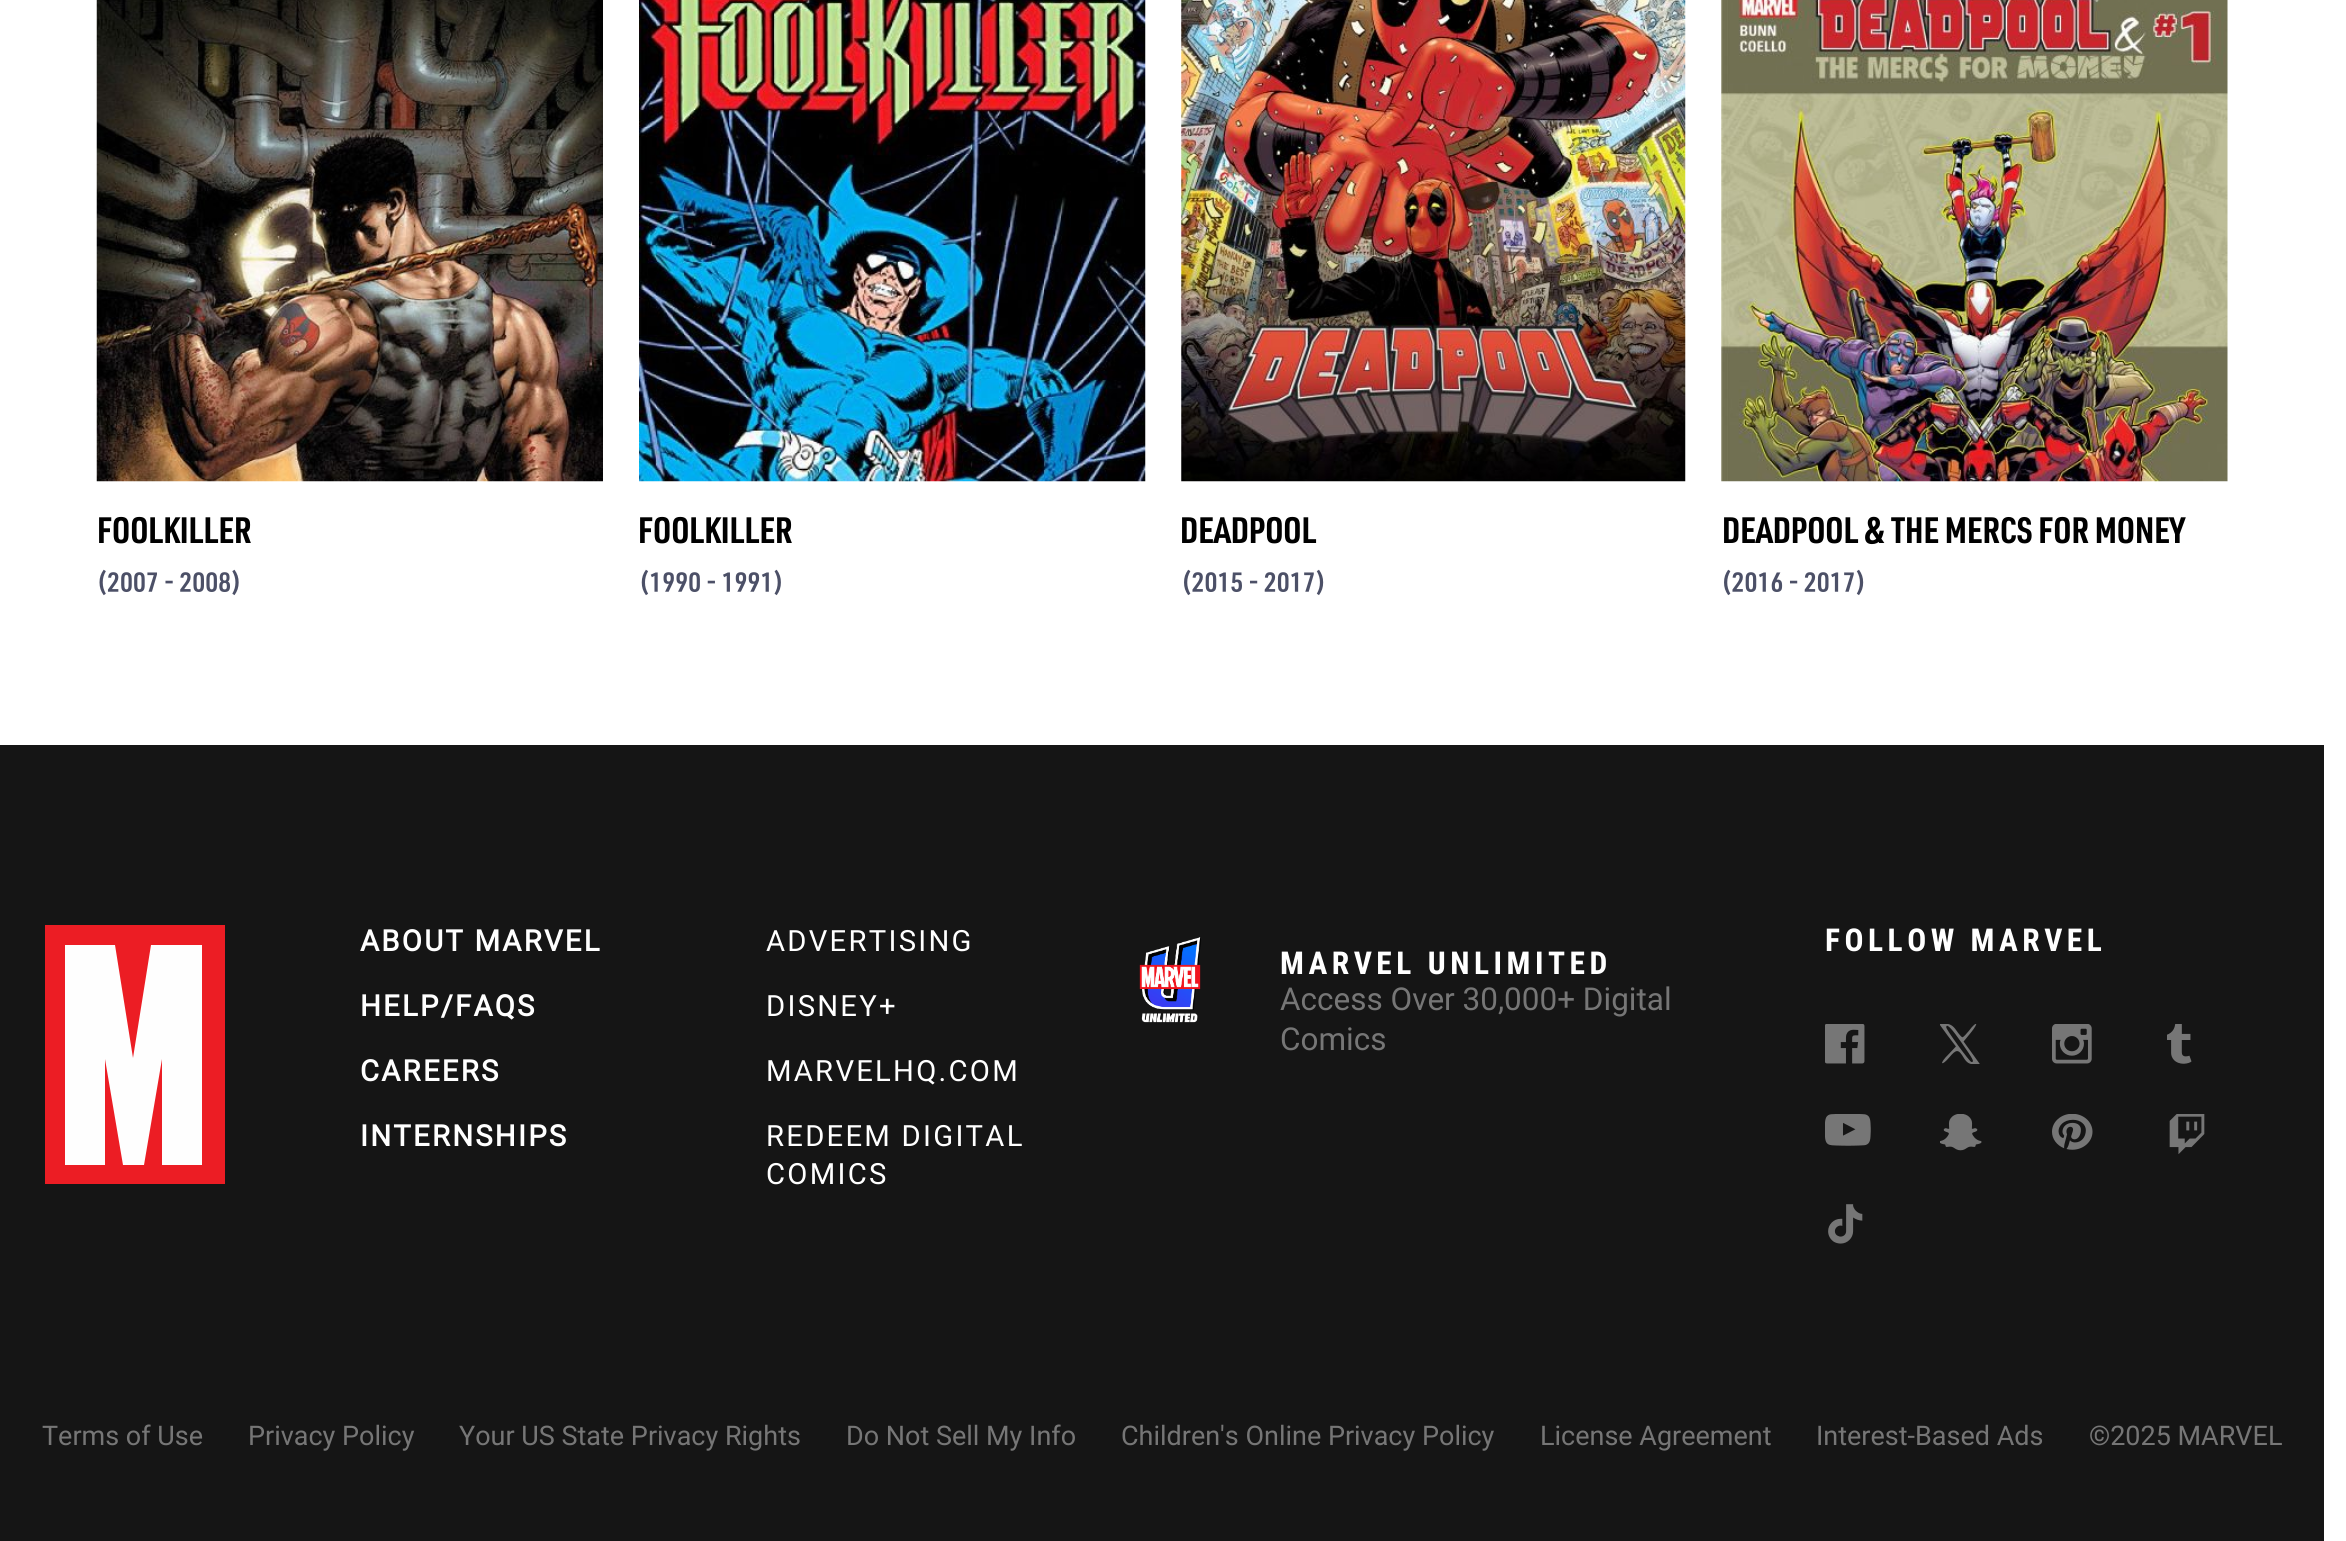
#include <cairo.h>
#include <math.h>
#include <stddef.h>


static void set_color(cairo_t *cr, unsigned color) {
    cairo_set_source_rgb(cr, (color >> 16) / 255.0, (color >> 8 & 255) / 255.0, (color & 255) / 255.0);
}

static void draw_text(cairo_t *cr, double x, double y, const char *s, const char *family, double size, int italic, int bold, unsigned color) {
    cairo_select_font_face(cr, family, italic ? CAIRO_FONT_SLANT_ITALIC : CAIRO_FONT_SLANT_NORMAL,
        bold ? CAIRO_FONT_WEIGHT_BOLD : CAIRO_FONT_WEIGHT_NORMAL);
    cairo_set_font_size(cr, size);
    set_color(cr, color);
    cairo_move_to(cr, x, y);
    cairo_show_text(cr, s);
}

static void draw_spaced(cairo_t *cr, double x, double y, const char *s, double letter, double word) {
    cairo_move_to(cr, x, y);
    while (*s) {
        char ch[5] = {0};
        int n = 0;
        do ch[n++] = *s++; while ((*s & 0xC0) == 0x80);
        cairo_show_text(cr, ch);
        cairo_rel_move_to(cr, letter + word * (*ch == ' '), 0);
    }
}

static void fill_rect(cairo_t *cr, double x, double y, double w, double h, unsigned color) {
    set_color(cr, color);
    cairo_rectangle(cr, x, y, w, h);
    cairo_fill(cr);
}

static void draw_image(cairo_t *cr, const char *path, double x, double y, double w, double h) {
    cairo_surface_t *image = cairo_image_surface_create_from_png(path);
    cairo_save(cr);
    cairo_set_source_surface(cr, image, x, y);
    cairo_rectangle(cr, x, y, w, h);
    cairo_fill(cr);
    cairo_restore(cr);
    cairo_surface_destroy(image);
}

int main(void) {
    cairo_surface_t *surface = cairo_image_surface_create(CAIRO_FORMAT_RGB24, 2346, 1541);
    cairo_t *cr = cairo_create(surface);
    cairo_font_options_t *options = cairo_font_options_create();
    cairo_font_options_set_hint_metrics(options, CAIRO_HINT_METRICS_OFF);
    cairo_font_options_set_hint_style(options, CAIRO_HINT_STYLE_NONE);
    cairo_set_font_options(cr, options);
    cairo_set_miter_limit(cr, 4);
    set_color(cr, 0xFFFFFF);
    cairo_paint(cr);
    draw_image(cr, "assets/img1.png", 96, 0, 507, 482);
    draw_text(cr, 97, 543, "FOOLKILLER", "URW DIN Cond", 36, 0, 1, 0x000000);
    draw_image(cr, "assets/img2.png", 99, 569, 140, 27);
    draw_image(cr, "assets/img3.png", 639, 0, 507, 482);
    draw_text(cr, 638, 543, "FOOLKILLER", "URW DIN Cond", 36, 0, 1, 0x000000);
    draw_image(cr, "assets/img4.png", 641, 569, 140, 27);
    draw_image(cr, "assets/img5.png", 1181, 0, 505, 482);
    draw_text(cr, 1180, 543, "DEADPOOL", "URW DIN Cond", 36, 0, 1, 0x000000);
    draw_image(cr, "assets/img6.png", 1184, 569, 140, 27);
    draw_image(cr, "assets/img7.png", 1721, 0, 507, 482);
    draw_text(cr, 1722, 543, "DEADPOOL & THE MERCS FOR MONEY", "URW DIN Cond", 36, 0, 1, 0x000000);
    draw_image(cr, "assets/img8.png", 1724, 569, 140, 27);
    fill_rect(cr, 0, 745, 2324, 796, 0x151515);
    fill_rect(cr, 45, 925, 180, 259, 0xEC1D24);
    set_color(cr, 0xFEFEFE);
    cairo_new_path(cr);
    cairo_move_to(cr, 202, 1165);
    cairo_line_to(cr, 202, 945);
    cairo_line_to(cr, 151, 945);
    cairo_line_to(cr, 133, 1058);
    cairo_line_to(cr, 115, 945);
    cairo_line_to(cr, 65, 945);
    cairo_line_to(cr, 65, 1165);
    cairo_line_to(cr, 105, 1165);
    cairo_line_to(cr, 105, 1059);
    cairo_line_to(cr, 123, 1165);
    cairo_line_to(cr, 144, 1165);
    cairo_line_to(cr, 162, 1059);
    cairo_line_to(cr, 162, 1165);
    cairo_close_path(cr);
    cairo_fill(cr);
    cairo_select_font_face(cr, "Roboto", CAIRO_FONT_SLANT_NORMAL, CAIRO_FONT_WEIGHT_BOLD);
    cairo_set_font_size(cr, 29.25);
    set_color(cr, 0xFFFFFF);
    draw_spaced(cr, 360, 951, "ABOUT MARVEL", 2.25, 0);
    draw_spaced(cr, 360, 1016, "HELP/FAQS", 2.25, 0);
    draw_spaced(cr, 360, 1081, "CAREERS", 2.25, 0);
    draw_spaced(cr, 360, 1146, "INTERNSHIPS", 2.25, 0);
    cairo_select_font_face(cr, "Roboto", CAIRO_FONT_SLANT_NORMAL, CAIRO_FONT_WEIGHT_NORMAL);
    draw_spaced(cr, 766, 951, "ADVERTISING", 2.25, 0);
    draw_spaced(cr, 766, 1016, "DISNEY+", 2.25, 0);
    draw_spaced(cr, 766, 1081, "MARVELHQ.COM", 2.25, 0);
    draw_spaced(cr, 766, 1146, "REDEEM DIGITAL", 2.25, 0);
    draw_spaced(cr, 766, 1184, "COMICS", 2.25, 0);
    draw_image(cr, "assets/img9.png", 1139, 937, 62, 86);
    cairo_select_font_face(cr, "Roboto Condensed", CAIRO_FONT_SLANT_NORMAL, CAIRO_FONT_WEIGHT_BOLD);
    cairo_set_font_size(cr, 31.5);
    draw_spaced(cr, 1280, 974, "MARVEL UNLIMITED", 4.5, 0);
    draw_text(cr, 1280, 1010, "Access Over 30,000+ Digital", "Roboto", 31.5, 0, 0, 0x767676);
    draw_text(cr, 1280, 1050, "Comics", "Roboto", 31.5, 0, 0, 0x767676);
    cairo_select_font_face(cr, "Roboto Condensed", CAIRO_FONT_SLANT_NORMAL, CAIRO_FONT_WEIGHT_BOLD);
    set_color(cr, 0xFFFFFF);
    draw_spaced(cr, 1825, 951, "FOLLOW MARVEL", 4.5, 0);
    draw_image(cr, "assets/img10.png", 1825, 1024, 40, 40);
    draw_image(cr, "assets/img11.png", 1940, 1024, 40, 40);
    draw_image(cr, "assets/img12.png", 2052, 1024, 40, 40);
    draw_image(cr, "assets/img13.png", 2167, 1024, 25, 40);
    draw_image(cr, "assets/img14.png", 1825, 1114, 46, 32);
    draw_image(cr, "assets/img15.png", 1940, 1114, 42, 37);
    draw_image(cr, "assets/img16.png", 2052, 1114, 41, 36);
    draw_image(cr, "assets/img17.png", 2169, 1114, 36, 40);
    draw_image(cr, "assets/img18.png", 1828, 1204, 35, 40);
    draw_text(cr, 42, 1445, "Terms of Use", "Roboto", 27, 0, 0, 0x767676);
    draw_text(cr, 248, 1445, "Privacy Policy", "Roboto", 27, 0, 0, 0x767676);
    draw_text(cr, 459, 1445, "Your US State Privacy Rights", "Roboto", 27, 0, 0, 0x767676);
    draw_text(cr, 846, 1445, "Do Not Sell My Info", "Roboto", 27, 0, 0, 0x767676);
    draw_text(cr, 1121, 1445, "Children's Online Privacy Policy", "Roboto", 27, 0, 0, 0x767676);
    draw_text(cr, 1540, 1445, "License Agreement", "Roboto", 27, 0, 0, 0x767676);
    draw_text(cr, 1816, 1445, "Interest-Based Ads", "Roboto", 27, 0, 0, 0x767676);
    draw_text(cr, 2089, 1445, "©2025 MARVEL", "Roboto", 27, 0, 0, 0x767676);
    cairo_surface_write_to_png(surface, "output.png");
    cairo_font_options_destroy(options);
    cairo_destroy(cr);
    cairo_surface_destroy(surface);
    return 0;
}
